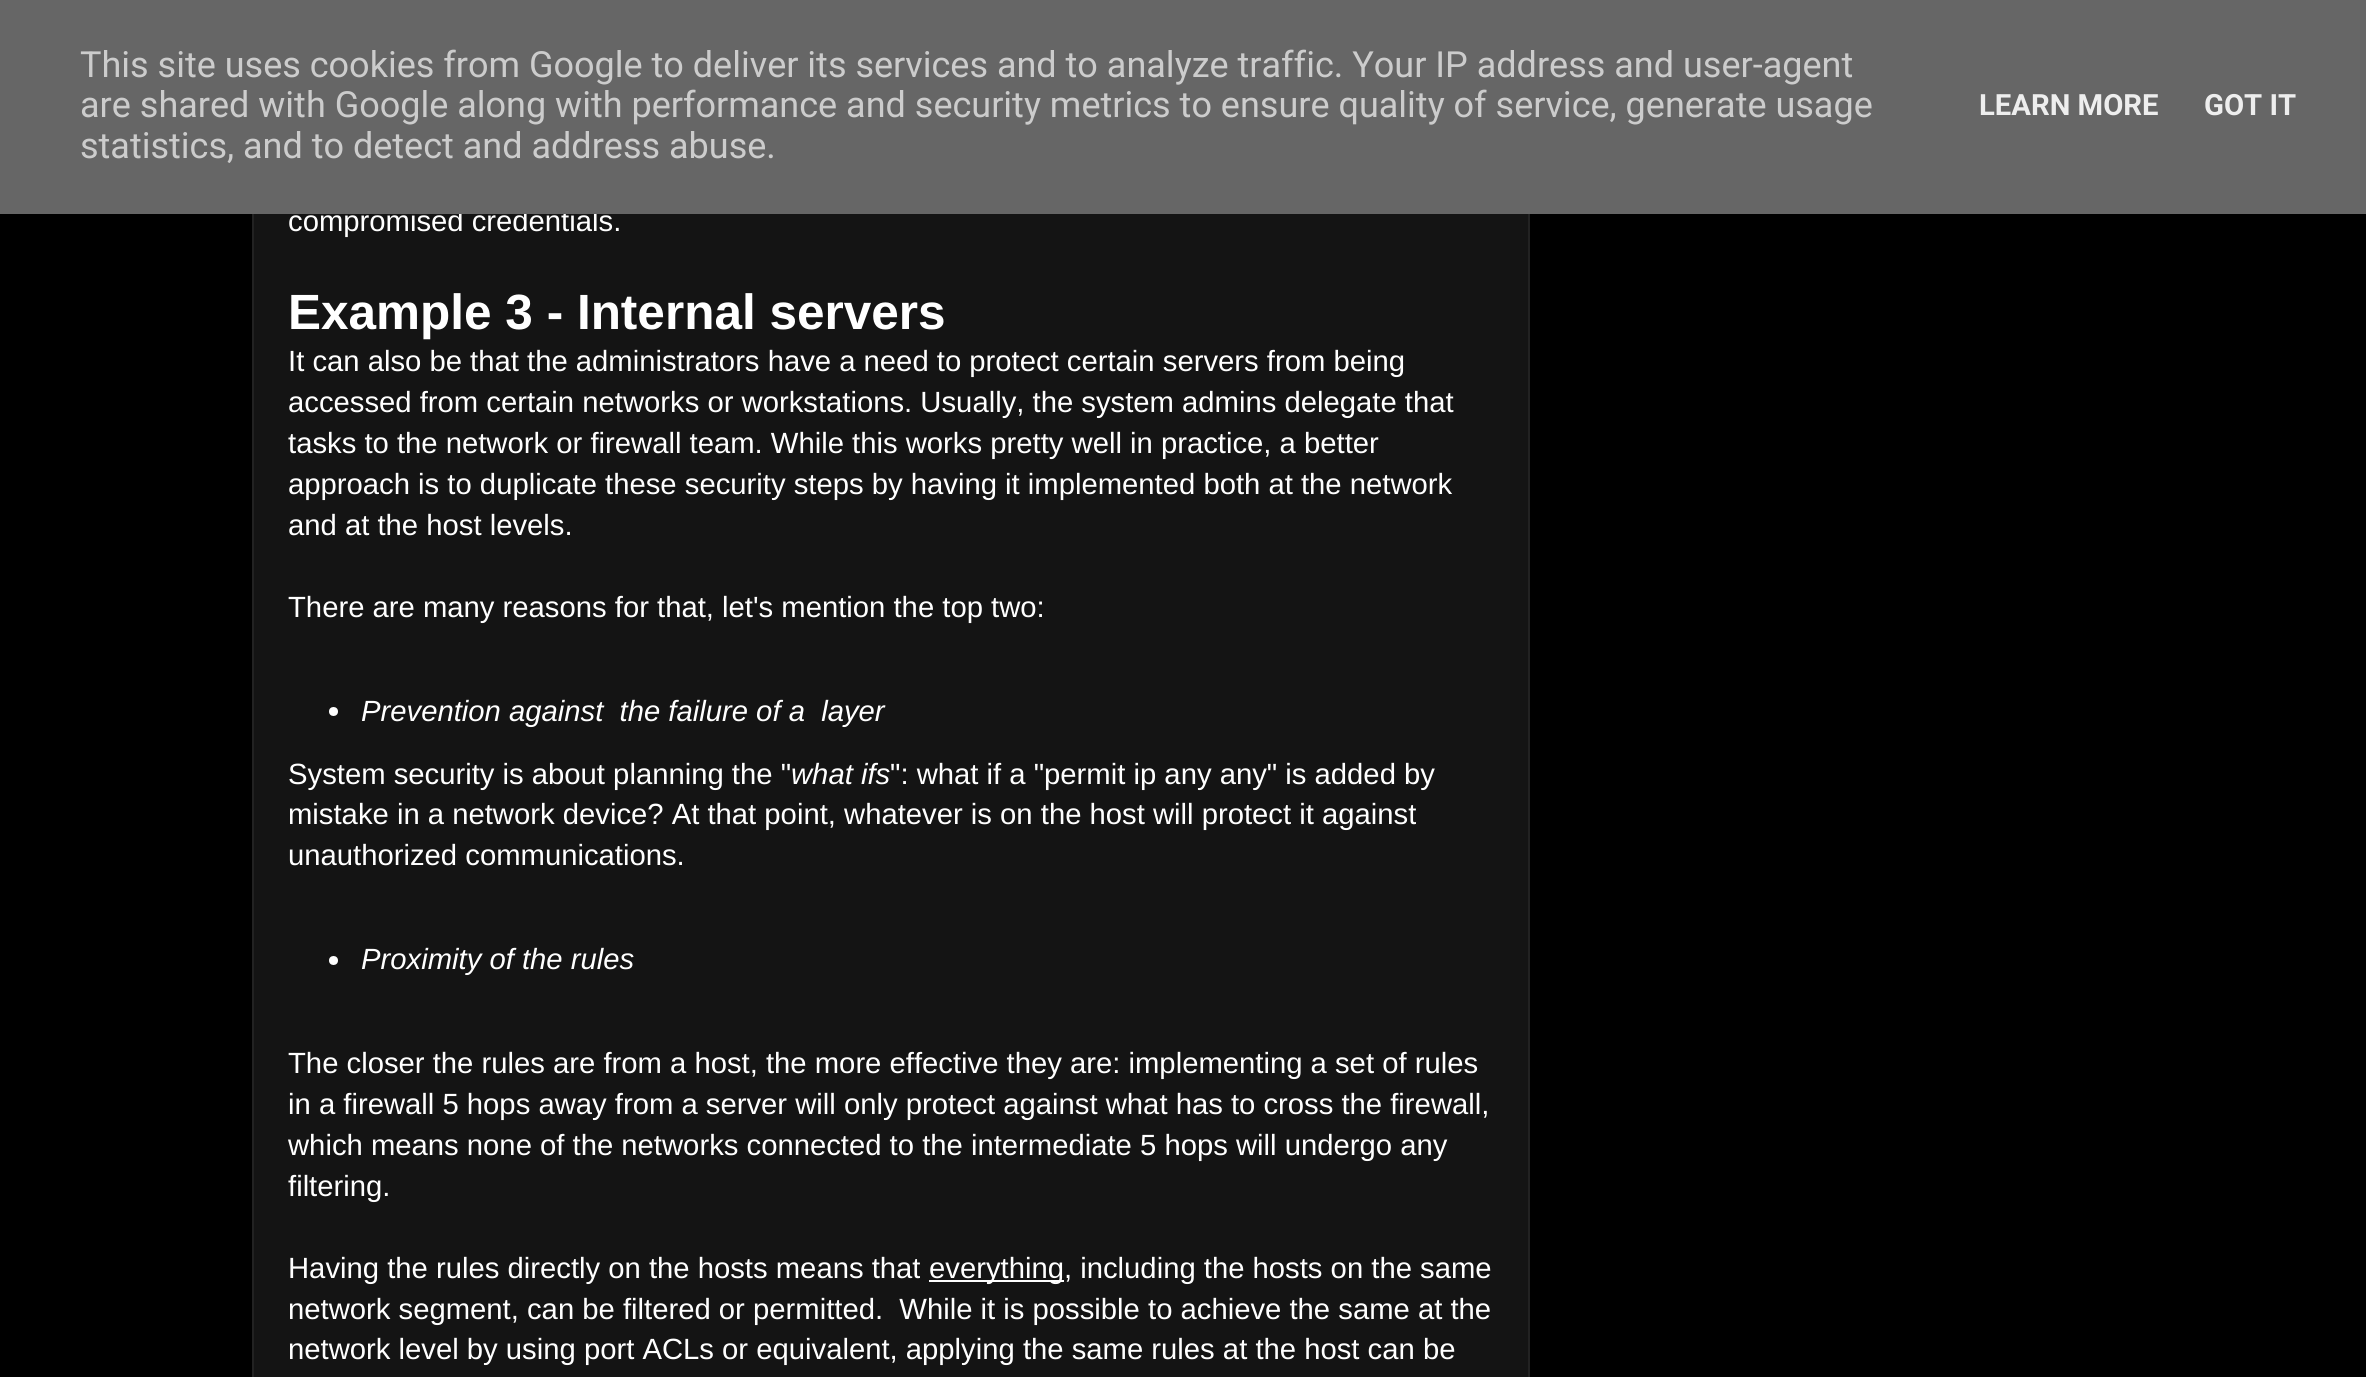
#include <cairo.h>
#include <math.h>
#include <stddef.h>


static void set_color(cairo_t *cr, unsigned color) {
    cairo_set_source_rgb(cr, (color >> 16) / 255.0, (color >> 8 & 255) / 255.0, (color & 255) / 255.0);
}

static void draw_text(cairo_t *cr, double x, double y, const char *s, const char *family, double size, int italic, int bold, unsigned color) {
    cairo_select_font_face(cr, family, italic ? CAIRO_FONT_SLANT_ITALIC : CAIRO_FONT_SLANT_NORMAL,
        bold ? CAIRO_FONT_WEIGHT_BOLD : CAIRO_FONT_WEIGHT_NORMAL);
    cairo_set_font_size(cr, size);
    set_color(cr, color);
    cairo_move_to(cr, x, y);
    cairo_show_text(cr, s);
}

static void fill_rect(cairo_t *cr, double x, double y, double w, double h, unsigned color) {
    set_color(cr, color);
    cairo_rectangle(cr, x, y, w, h);
    cairo_fill(cr);
}

int main(void) {
    cairo_surface_t *surface = cairo_image_surface_create(CAIRO_FORMAT_RGB24, 2366, 1377);
    cairo_t *cr = cairo_create(surface);
    cairo_font_options_t *options = cairo_font_options_create();
    cairo_font_options_set_hint_metrics(options, CAIRO_HINT_METRICS_OFF);
    cairo_font_options_set_hint_style(options, CAIRO_HINT_STYLE_NONE);
    cairo_set_font_options(cr, options);
    cairo_set_miter_limit(cr, 4);
    set_color(cr, 0x000000);
    cairo_paint(cr);
    fill_rect(cr, 254, 214, 1274, 1163, 0x141414);
    cairo_rectangle(cr, 253, -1, 1276, 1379);
    set_color(cr, 0x222222);
    cairo_stroke(cr);
    draw_text(cr, 288, 231, "compromised credentials.", "Liberation Sans", 29.25, 0, 0, 0xFFFFFF);
    fill_rect(cr, 0, 0, 2366, 214, 0x666666);
    draw_text(cr, 80, 77, "This site uses cookies from Google to deliver its services and to analyze traffic. Your IP address and user-agent", "Roboto", 36, 0, 0, 0xCCCCCC);
    draw_text(cr, 80, 117, "are shared with Google along with performance and security metrics to ensure quality of service, generate usage", "Roboto", 36, 0, 0, 0xCCCCCC);
    draw_text(cr, 80, 158, "statistics, and to detect and address abuse.", "Roboto", 36, 0, 0, 0xCCCCCC);
    draw_text(cr, 1979, 115, "LEARN MORE", "Roboto", 29.25, 0, 1, 0xEEEEEE);
    draw_text(cr, 2204, 115, "GOT IT", "Roboto", 29.25, 0, 1, 0xEEEEEE);
    draw_text(cr, 288, 329, "Example 3 - Internal servers", "Liberation Sans", 49.5, 0, 1, 0xFFFFFF);
    draw_text(cr, 288, 371, "It can also be that the administrators have a need to protect certain servers from being", "Liberation Sans", 29.25, 0, 0, 0xFFFFFF);
    draw_text(cr, 288, 412, "accessed from certain networks or workstations. Usually, the system admins delegate that", "Liberation Sans", 29.25, 0, 0, 0xFFFFFF);
    draw_text(cr, 288, 453, "tasks to the network or firewall team. While this works pretty well in practice, a better", "Liberation Sans", 29.25, 0, 0, 0xFFFFFF);
    draw_text(cr, 288, 494, "approach is to duplicate these security steps by having it implemented both at the network", "Liberation Sans", 29.25, 0, 0, 0xFFFFFF);
    draw_text(cr, 288, 535, "and at the host levels.", "Liberation Sans", 29.25, 0, 0, 0xFFFFFF);
    draw_text(cr, 288, 617, "There are many reasons for that, let's mention the top two:", "Liberation Sans", 29.25, 0, 0, 0xFFFFFF);
    cairo_new_path(cr);
    cairo_arc(cr, 333.5, 711.5, 4.5, 0, 2 * M_PI);
    cairo_fill(cr);
    draw_text(cr, 361, 721, "Prevention against  the failure of a  layer", "Liberation Sans", 29.25, 1, 0, 0xFFFFFF);
    draw_text(cr, 288, 784, "System security is about planning the \"", "Liberation Sans", 29.25, 0, 0, 0xFFFFFF);
    draw_text(cr, 791, 784, "what ifs", "Liberation Sans", 29.25, 1, 0, 0xFFFFFF);
    draw_text(cr, 890, 784, "\": what if a \"permit ip any any\" is added by", "Liberation Sans", 29.25, 0, 0, 0xFFFFFF);
    draw_text(cr, 288, 824, "mistake in a network device? At that point, whatever is on the host will protect it against", "Liberation Sans", 29.25, 0, 0, 0xFFFFFF);
    draw_text(cr, 288, 865, "unauthorized communications.", "Liberation Sans", 29.25, 0, 0, 0xFFFFFF);
    cairo_new_path(cr);
    cairo_arc(cr, 333.5, 960.5, 4.5, 0, 2 * M_PI);
    cairo_fill(cr);
    draw_text(cr, 361, 969, "Proximity of the rules", "Liberation Sans", 29.25, 1, 0, 0xFFFFFF);
    draw_text(cr, 288, 1073, "The closer the rules are from a host, the more effective they are: implementing a set of rules", "Liberation Sans", 29.25, 0, 0, 0xFFFFFF);
    draw_text(cr, 288, 1114, "in a firewall 5 hops away from a server will only protect against what has to cross the firewall,", "Liberation Sans", 29.25, 0, 0, 0xFFFFFF);
    draw_text(cr, 288, 1155, "which means none of the networks connected to the intermediate 5 hops will undergo any", "Liberation Sans", 29.25, 0, 0, 0xFFFFFF);
    draw_text(cr, 288, 1196, "filtering.", "Liberation Sans", 29.25, 0, 0, 0xFFFFFF);
    draw_text(cr, 288, 1278, "Having the rules directly on the hosts means that", "Liberation Sans", 29.25, 0, 0, 0xFFFFFF);
    fill_rect(cr, 929, 1280, 135, 2, 0xFFFFFF);
    draw_text(cr, 929, 1278, "everything, including the hosts on the same", "Liberation Sans", 29.25, 0, 0, 0xFFFFFF);
    draw_text(cr, 288, 1319, "network segment, can be filtered or permitted.  While it is possible to achieve the same at the", "Liberation Sans", 29.25, 0, 0, 0xFFFFFF);
    draw_text(cr, 288, 1359, "network level by using port ACLs or equivalent, applying the same rules at the host can be", "Liberation Sans", 29.25, 0, 0, 0xFFFFFF);
    cairo_surface_write_to_png(surface, "output.png");
    cairo_font_options_destroy(options);
    cairo_destroy(cr);
    cairo_surface_destroy(surface);
    return 0;
}
